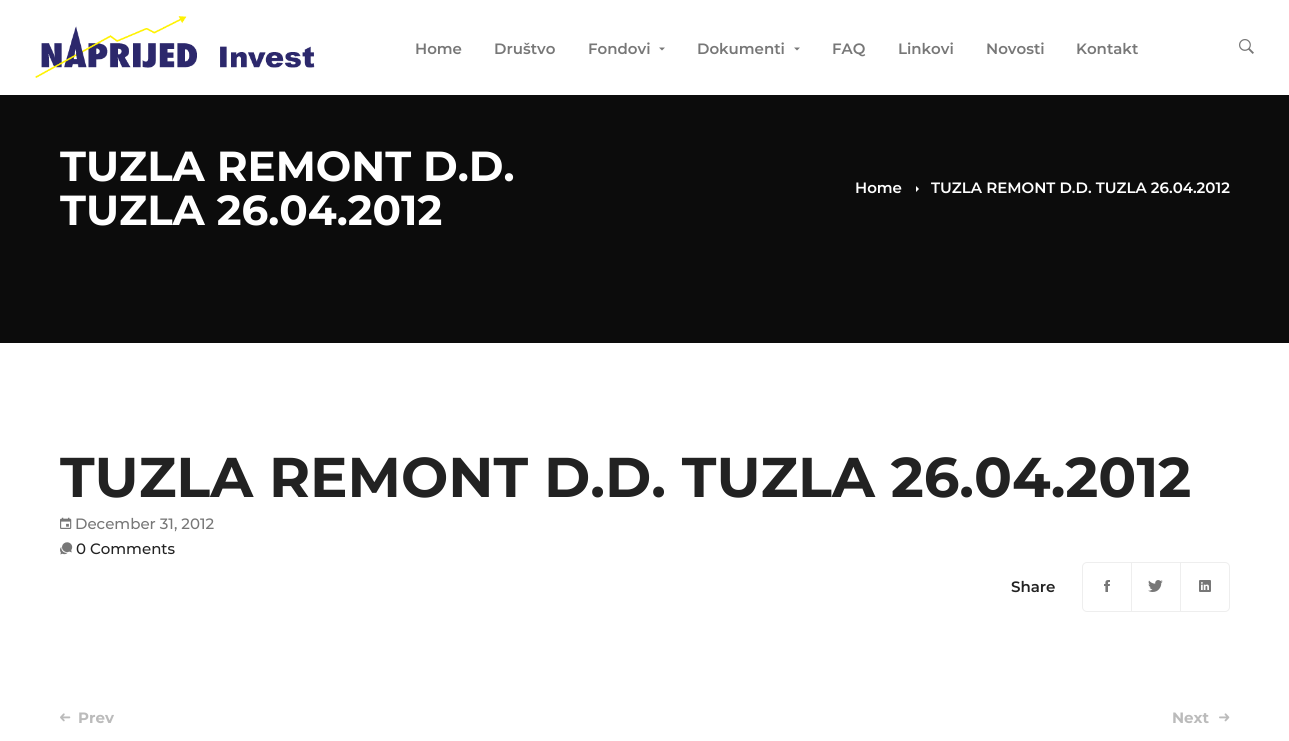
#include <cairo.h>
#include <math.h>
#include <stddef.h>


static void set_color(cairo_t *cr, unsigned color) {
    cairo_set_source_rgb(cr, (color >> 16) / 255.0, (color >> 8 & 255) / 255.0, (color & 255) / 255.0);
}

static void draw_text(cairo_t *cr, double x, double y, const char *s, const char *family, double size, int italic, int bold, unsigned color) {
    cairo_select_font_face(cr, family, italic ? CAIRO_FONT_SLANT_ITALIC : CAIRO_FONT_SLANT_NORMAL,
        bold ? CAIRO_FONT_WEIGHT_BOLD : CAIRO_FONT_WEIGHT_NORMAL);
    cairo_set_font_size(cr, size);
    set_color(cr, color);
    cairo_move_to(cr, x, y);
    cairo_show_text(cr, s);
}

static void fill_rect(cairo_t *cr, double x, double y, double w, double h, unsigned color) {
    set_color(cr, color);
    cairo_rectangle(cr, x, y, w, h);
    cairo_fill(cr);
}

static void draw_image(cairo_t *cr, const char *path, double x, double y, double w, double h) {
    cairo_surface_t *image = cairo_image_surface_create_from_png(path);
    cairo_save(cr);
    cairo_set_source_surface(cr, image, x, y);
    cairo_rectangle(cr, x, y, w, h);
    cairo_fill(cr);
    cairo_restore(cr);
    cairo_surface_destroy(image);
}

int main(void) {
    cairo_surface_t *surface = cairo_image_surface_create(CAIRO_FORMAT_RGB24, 1289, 741);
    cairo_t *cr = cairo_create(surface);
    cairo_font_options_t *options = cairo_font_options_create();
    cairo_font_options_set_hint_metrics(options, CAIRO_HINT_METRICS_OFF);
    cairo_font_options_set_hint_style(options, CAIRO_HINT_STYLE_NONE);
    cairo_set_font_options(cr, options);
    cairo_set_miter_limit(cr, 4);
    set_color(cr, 0xFFFFFF);
    cairo_paint(cr);
    draw_image(cr, "assets/img1.png", 35, 16, 280, 62);
    draw_text(cr, 415, 54, "Home", "Montserrat SemiBold", 15, 0, 0, 0x777777);
    draw_text(cr, 494, 54, "Društvo", "Montserrat SemiBold", 15, 0, 0, 0x777777);
    draw_text(cr, 588, 54, "Fondovi", "Montserrat SemiBold", 15, 0, 0, 0x777777);
    cairo_new_path(cr);
    cairo_move_to(cr, 659, 47.5);
    cairo_line_to(cr, 665, 47.5);
    cairo_line_to(cr, 662, 50.5);
    cairo_close_path(cr);
    cairo_fill(cr);
    draw_text(cr, 697, 54, "Dokumenti", "Montserrat SemiBold", 15, 0, 0, 0x777777);
    cairo_new_path(cr);
    cairo_move_to(cr, 794, 47.5);
    cairo_line_to(cr, 800, 47.5);
    cairo_line_to(cr, 797, 50.5);
    cairo_close_path(cr);
    cairo_fill(cr);
    draw_text(cr, 832, 54, "FAQ", "Montserrat SemiBold", 15, 0, 0, 0x777777);
    draw_text(cr, 898, 54, "Linkovi", "Montserrat SemiBold", 15, 0, 0, 0x777777);
    draw_text(cr, 986, 54, "Novosti", "Montserrat SemiBold", 15, 0, 0, 0x777777);
    draw_text(cr, 1076, 54, "Kontakt", "Montserrat SemiBold", 15, 0, 0, 0x777777);
    draw_image(cr, "assets/img2.png", 1239, 39, 15, 15);
    fill_rect(cr, 0, 95, 1289, 248, 0x0C0C0C);
    draw_text(cr, 60, 181, "TUZLA REMONT D.D.", "Montserrat", 42, 0, 1, 0xFFFFFF);
    draw_text(cr, 60, 225, "TUZLA 26.04.2012", "Montserrat", 42, 0, 1, 0xFFFFFF);
    draw_text(cr, 855, 193, "Home", "Montserrat SemiBold", 15, 0, 0, 0xFFFFFF);
    cairo_new_path(cr);
    cairo_move_to(cr, 916, 186);
    cairo_line_to(cr, 919, 189);
    cairo_line_to(cr, 916, 192);
    cairo_close_path(cr);
    cairo_fill(cr);
    draw_text(cr, 931, 193, "TUZLA REMONT D.D. TUZLA 26.04.2012", "Montserrat SemiBold", 15, 0, 0, 0xFFFFFF);
    draw_text(cr, 60, 497, "TUZLA REMONT D.D. TUZLA 26.04.2012", "Montserrat", 56, 0, 1, 0x222222);
    draw_image(cr, "assets/img3.png", 60, 517, 12, 12);
    draw_text(cr, 75, 529, "December 31, 2012", "Montserrat Medium", 15, 0, 0, 0x777777);
    draw_image(cr, "assets/img4.png", 60, 542, 13, 13);
    draw_text(cr, 76, 554, "0 Comments", "Montserrat Medium", 15, 0, 0, 0x222222);
    draw_text(cr, 1011, 592, "Share", "Montserrat SemiBold", 15, 0, 0, 0x222222);
    cairo_new_path(cr);
    cairo_move_to(cr, 1087, 562.5);
    cairo_line_to(cr, 1131.5, 562.5);
    cairo_line_to(cr, 1131.5, 611.5);
    cairo_line_to(cr, 1087, 611.5);
    cairo_curve_to(cr, 1084.5, 611.5, 1082.5, 609.5, 1082.5, 607);
    cairo_line_to(cr, 1082.5, 567);
    cairo_curve_to(cr, 1082.5, 564.5, 1084.5, 562.5, 1087, 562.5);
    cairo_close_path(cr);
    set_color(cr, 0xEEEEEE);
    cairo_set_line_width(cr, 1);
    cairo_stroke(cr);
    draw_image(cr, "assets/img5.png", 1104, 580, 6, 12);
    cairo_rectangle(cr, 1131.5, 562.5, 49, 49);
    cairo_stroke(cr);
    draw_image(cr, "assets/img6.png", 1148, 580, 15, 12);
    cairo_new_path(cr);
    cairo_move_to(cr, 1180.5, 562.5);
    cairo_line_to(cr, 1225, 562.5);
    cairo_curve_to(cr, 1227.5, 562.5, 1229.5, 564.5, 1229.5, 567);
    cairo_line_to(cr, 1229.5, 607);
    cairo_curve_to(cr, 1229.5, 609.5, 1227.5, 611.5, 1225, 611.5);
    cairo_line_to(cr, 1180.5, 611.5);
    cairo_close_path(cr);
    cairo_stroke(cr);
    draw_image(cr, "assets/img7.png", 1199, 580, 12, 12);
    draw_image(cr, "assets/img8.png", 60, 713, 11, 9);
    draw_text(cr, 78, 723, "Prev", "Montserrat", 15, 0, 1, 0xBBBBBB);
    draw_text(cr, 1172, 723, "Next", "Montserrat", 15, 0, 1, 0xBBBBBB);
    draw_image(cr, "assets/img9.png", 1219, 713, 11, 9);
    cairo_surface_write_to_png(surface, "output.png");
    cairo_font_options_destroy(options);
    cairo_destroy(cr);
    cairo_surface_destroy(surface);
    return 0;
}
